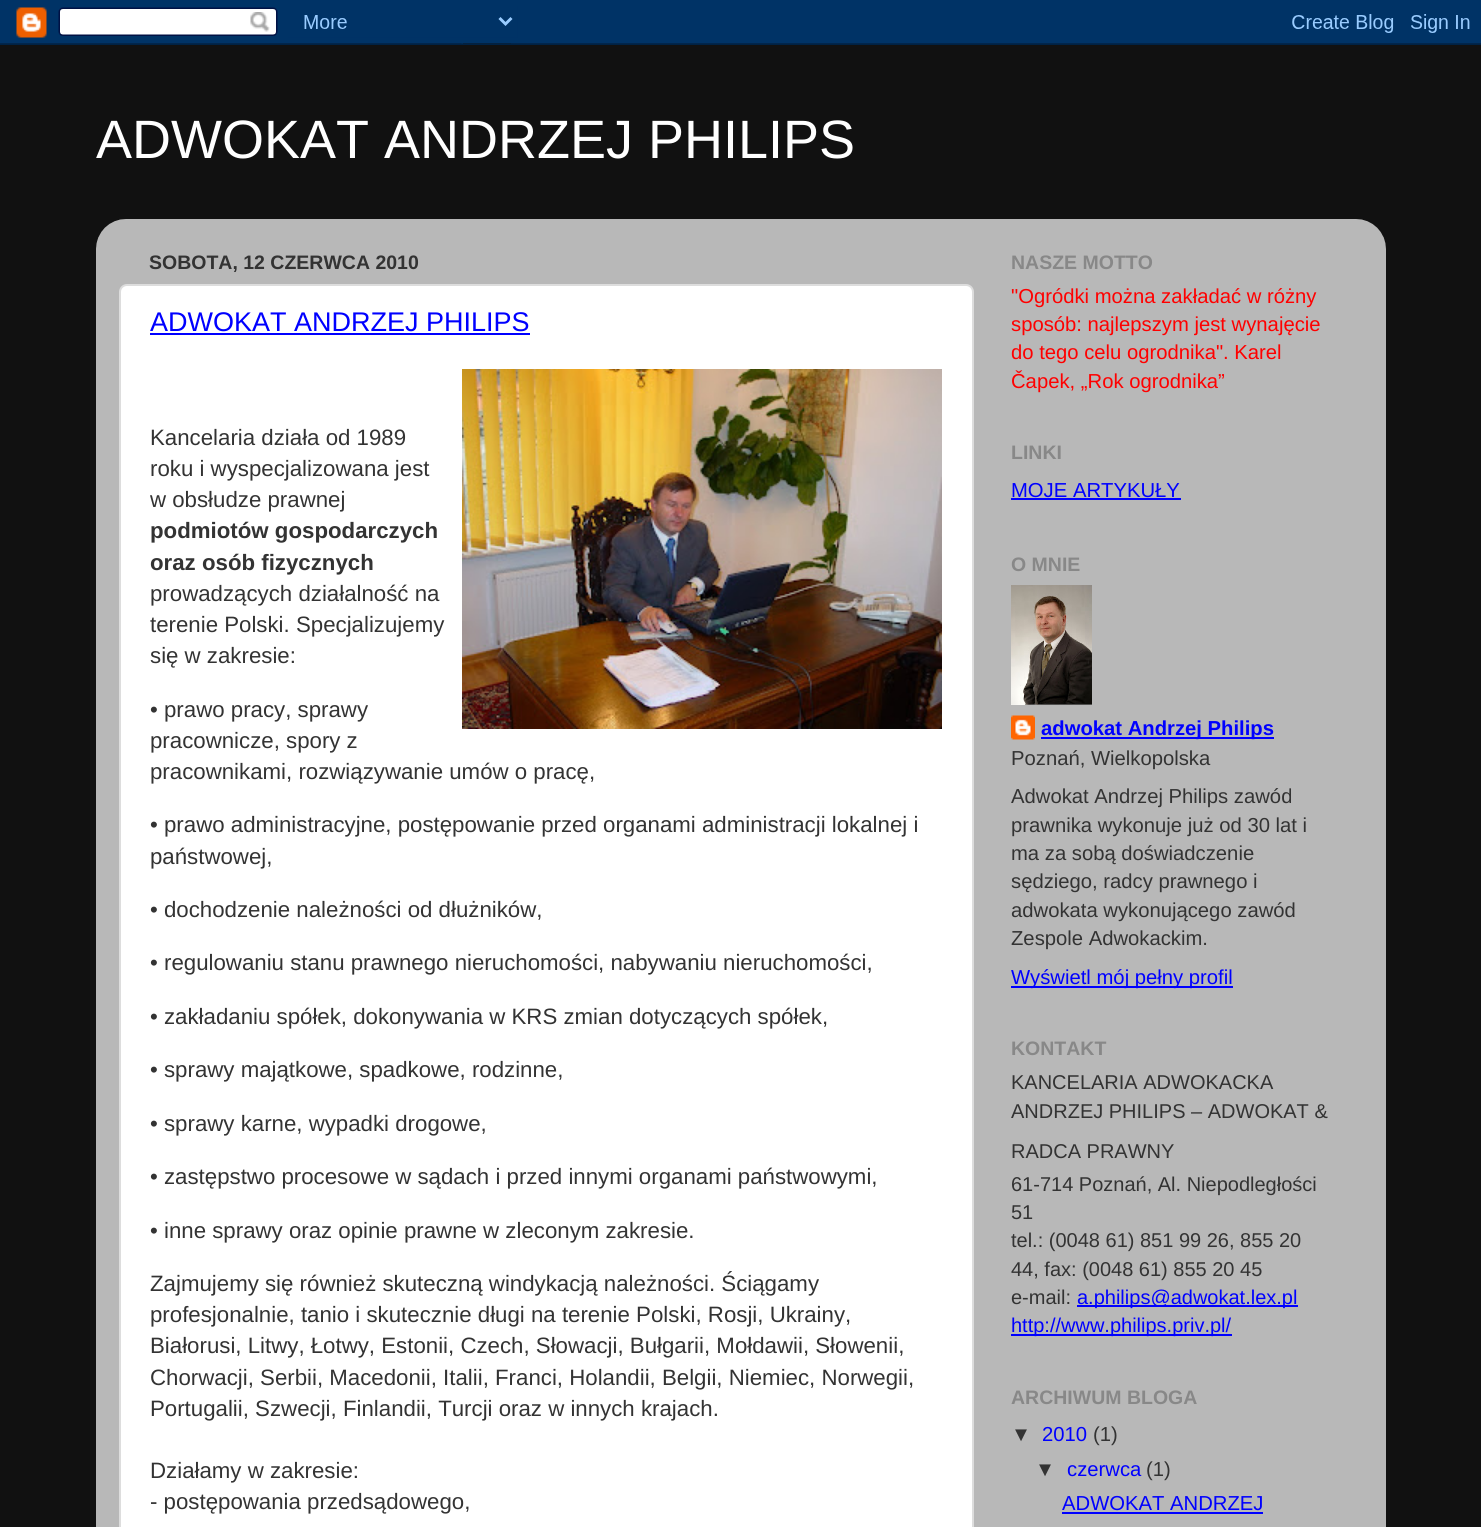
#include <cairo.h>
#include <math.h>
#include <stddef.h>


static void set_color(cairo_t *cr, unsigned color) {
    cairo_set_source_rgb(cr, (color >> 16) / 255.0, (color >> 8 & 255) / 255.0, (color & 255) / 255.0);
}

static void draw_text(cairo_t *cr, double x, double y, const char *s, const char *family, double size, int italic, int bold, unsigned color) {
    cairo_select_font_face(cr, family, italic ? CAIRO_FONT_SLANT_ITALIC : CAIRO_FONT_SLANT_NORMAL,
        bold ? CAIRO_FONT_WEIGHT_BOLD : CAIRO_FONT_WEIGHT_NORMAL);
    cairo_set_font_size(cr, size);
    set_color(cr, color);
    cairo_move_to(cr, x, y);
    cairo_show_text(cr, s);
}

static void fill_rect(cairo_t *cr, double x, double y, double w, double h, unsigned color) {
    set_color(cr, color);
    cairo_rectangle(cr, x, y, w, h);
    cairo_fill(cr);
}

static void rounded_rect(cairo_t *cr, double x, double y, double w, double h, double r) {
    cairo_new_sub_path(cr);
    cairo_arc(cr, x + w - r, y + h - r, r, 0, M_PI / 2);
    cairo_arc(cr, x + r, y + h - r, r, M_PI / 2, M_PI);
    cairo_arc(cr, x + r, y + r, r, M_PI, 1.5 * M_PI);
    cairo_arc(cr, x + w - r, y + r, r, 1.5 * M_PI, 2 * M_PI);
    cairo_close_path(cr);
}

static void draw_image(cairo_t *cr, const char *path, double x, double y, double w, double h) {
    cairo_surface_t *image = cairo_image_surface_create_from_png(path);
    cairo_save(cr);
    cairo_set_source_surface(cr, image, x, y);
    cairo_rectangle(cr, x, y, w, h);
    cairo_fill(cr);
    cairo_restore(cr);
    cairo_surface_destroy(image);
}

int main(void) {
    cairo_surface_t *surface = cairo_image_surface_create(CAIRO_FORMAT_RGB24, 1481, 1527);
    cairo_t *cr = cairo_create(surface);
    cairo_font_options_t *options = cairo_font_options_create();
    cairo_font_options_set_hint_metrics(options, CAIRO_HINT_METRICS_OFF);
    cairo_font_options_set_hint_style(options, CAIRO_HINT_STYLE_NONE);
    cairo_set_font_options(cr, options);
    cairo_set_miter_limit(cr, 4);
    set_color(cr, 0x111111);
    cairo_paint(cr);
    draw_image(cr, "assets/img1.png", 0, 0, 1481, 45);
    draw_text(cr, 96, 158, "ADWOKAT ANDRZEJ PHILIPS", "Liberation Sans", 54, 0, 0, 0xFFFFFF);
    draw_image(cr, "assets/img2.png", 96, 219, 1290, 1308);
    draw_text(cr, 149, 269, "SOBOTA, 12 CZERWCA 2010", "Liberation Sans", 19.5, 0, 1, 0x333333);
    set_color(cr, 0xFFFFFF);
    rounded_rect(cr, 120, 285, 853, 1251, 7);
    cairo_fill_preserve(cr);
    set_color(cr, 0xDDDDDD);
    cairo_stroke(cr);
    draw_text(cr, 150, 331, "ADWOKAT ANDRZEJ PHILIPS", "Liberation Sans", 27, 0, 0, 0x0000FF);
    fill_rect(cr, 150, 333, 380, 2, 0x0000FF);
    draw_text(cr, 150, 445, "Kancelaria działa od 1989", "Liberation Sans", 22.25, 0, 0, 0x333333);
    draw_text(cr, 150, 476, "roku i wyspecjalizowana jest", "Liberation Sans", 22.25, 0, 0, 0x333333);
    draw_text(cr, 150, 507, "w obsłudze prawnej", "Liberation Sans", 22.25, 0, 0, 0x333333);
    draw_text(cr, 150, 538, "podmiotów gospodarczych", "Liberation Sans", 22.25, 0, 1, 0x333333);
    draw_text(cr, 150, 570, "oraz osób fizycznych", "Liberation Sans", 22.25, 0, 1, 0x333333);
    draw_text(cr, 150, 601, "prowadzących działalność na", "Liberation Sans", 22.25, 0, 0, 0x333333);
    draw_text(cr, 150, 632, "terenie Polski. Specjalizujemy", "Liberation Sans", 22.25, 0, 0, 0x333333);
    draw_text(cr, 150, 663, "się w zakresie:", "Liberation Sans", 22.25, 0, 0, 0x333333);
    draw_image(cr, "assets/img3.png", 462, 369, 480, 360);
    draw_text(cr, 150, 717, "• prawo pracy, sprawy", "Liberation Sans", 22.25, 0, 0, 0x333333);
    draw_text(cr, 150, 748, "pracownicze, spory z", "Liberation Sans", 22.25, 0, 0, 0x333333);
    draw_text(cr, 150, 779, "pracownikami, rozwiązywanie umów o pracę,", "Liberation Sans", 22.25, 0, 0, 0x333333);
    draw_text(cr, 150, 832, "• prawo administracyjne, postępowanie przed organami administracji lokalnej i", "Liberation Sans", 22.25, 0, 0, 0x333333);
    draw_text(cr, 150, 864, "państwowej,", "Liberation Sans", 22.25, 0, 0, 0x333333);
    draw_text(cr, 150, 917, "• dochodzenie należności od dłużników,", "Liberation Sans", 22.25, 0, 0, 0x333333);
    draw_text(cr, 150, 970, "• regulowaniu stanu prawnego nieruchomości, nabywaniu nieruchomości,", "Liberation Sans", 22.25, 0, 0, 0x333333);
    draw_text(cr, 150, 1024, "• zakładaniu spółek, dokonywania w KRS zmian dotyczących spółek,", "Liberation Sans", 22.25, 0, 0, 0x333333);
    draw_text(cr, 150, 1077, "• sprawy majątkowe, spadkowe, rodzinne,", "Liberation Sans", 22.25, 0, 0, 0x333333);
    draw_text(cr, 150, 1131, "• sprawy karne, wypadki drogowe,", "Liberation Sans", 22.25, 0, 0, 0x333333);
    draw_text(cr, 150, 1184, "• zastępstwo procesowe w sądach i przed innymi organami państwowymi,", "Liberation Sans", 22.25, 0, 0, 0x333333);
    draw_text(cr, 150, 1238, "• inne sprawy oraz opinie prawne w zleconym zakresie.", "Liberation Sans", 22.25, 0, 0, 0x333333);
    draw_text(cr, 150, 1291, "Zajmujemy się również skuteczną windykacją należności. Ściągamy", "Liberation Sans", 22.25, 0, 0, 0x333333);
    draw_text(cr, 150, 1322, "profesjonalnie, tanio i skutecznie długi na terenie Polski, Rosji, Ukrainy,", "Liberation Sans", 22.25, 0, 0, 0x333333);
    draw_text(cr, 150, 1353, "Białorusi, Litwy, Łotwy, Estonii, Czech, Słowacji, Bułgarii, Mołdawii, Słowenii,", "Liberation Sans", 22.25, 0, 0, 0x333333);
    draw_text(cr, 150, 1385, "Chorwacji, Serbii, Macedonii, Italii, Franci, Holandii, Belgii, Niemiec, Norwegii,", "Liberation Sans", 22.25, 0, 0, 0x333333);
    draw_text(cr, 150, 1416, "Portugalii, Szwecji, Finlandii, Turcji oraz w innych krajach.", "Liberation Sans", 22.25, 0, 0, 0x333333);
    draw_text(cr, 150, 1478, "Działamy w zakresie:", "Liberation Sans", 22.25, 0, 0, 0x333333);
    draw_text(cr, 150, 1509, "- postępowania przedsądowego,", "Liberation Sans", 22.25, 0, 0, 0x333333);
    draw_text(cr, 1011, 269, "NASZE MOTTO", "Liberation Sans", 19.5, 0, 1, 0x888888);
    draw_text(cr, 1011, 303, "\"Ogródki można zakładać w różny", "Liberation Sans", 20.25, 0, 0, 0xFF0000);
    draw_text(cr, 1011, 331, "sposób: najlepszym jest wynajęcie", "Liberation Sans", 20.25, 0, 0, 0xFF0000);
    draw_text(cr, 1011, 359, "do tego celu ogrodnika\". Karel", "Liberation Sans", 20.25, 0, 0, 0xFF0000);
    draw_text(cr, 1011, 388, "Čapek, „Rok ogrodnika”", "Liberation Sans", 20.25, 0, 0, 0xFF0000);
    draw_text(cr, 1011, 459, "LINKI", "Liberation Sans", 19.5, 0, 1, 0x888888);
    draw_text(cr, 1011, 497, "MOJE ARTYKUŁY", "Liberation Sans", 20.25, 0, 0, 0x0000FF);
    fill_rect(cr, 1011, 498, 170, 2, 0x0000FF);
    draw_text(cr, 1011, 571, "O MNIE", "Liberation Sans", 19.5, 0, 1, 0x888888);
    draw_image(cr, "assets/img4.png", 1011, 585, 81, 120);
    draw_image(cr, "assets/img5.png", 1011, 715, 24, 25);
    fill_rect(cr, 1041, 737, 233, 2, 0x0000FF);
    draw_text(cr, 1041, 735, "adwokat Andrzej Philips", "Liberation Sans", 20.25, 0, 1, 0x0000FF);
    draw_text(cr, 1011, 765, "Poznań, Wielkopolska", "Liberation Sans", 20.25, 0, 0, 0x333333);
    draw_text(cr, 1011, 803, "Adwokat Andrzej Philips zawód", "Liberation Sans", 20.25, 0, 0, 0x333333);
    draw_text(cr, 1011, 832, "prawnika wykonuje już od 30 lat i", "Liberation Sans", 20.25, 0, 0, 0x333333);
    draw_text(cr, 1011, 860, "ma za sobą doświadczenie", "Liberation Sans", 20.25, 0, 0, 0x333333);
    draw_text(cr, 1011, 888, "sędziego, radcy prawnego i", "Liberation Sans", 20.25, 0, 0, 0x333333);
    draw_text(cr, 1011, 917, "adwokata wykonującego zawód", "Liberation Sans", 20.25, 0, 0, 0x333333);
    draw_text(cr, 1011, 945, "Zespole Adwokackim.", "Liberation Sans", 20.25, 0, 0, 0x333333);
    fill_rect(cr, 1011, 986, 222, 2, 0x0000FF);
    draw_text(cr, 1011, 984, "Wyświetl mój pełny profil", "Liberation Sans", 20.25, 0, 0, 0x0000FF);
    draw_text(cr, 1011, 1055, "KONTAKT", "Liberation Sans", 19.5, 0, 1, 0x888888);
    draw_text(cr, 1011, 1089, "KANCELARIA ADWOKACKA", "Liberation Sans", 20, 0, 0, 0x333333);
    draw_text(cr, 1011, 1118, "ANDRZEJ PHILIPS – ADWOKAT &", "Liberation Sans", 20, 0, 0, 0x333333);
    draw_text(cr, 1011, 1158, "RADCA PRAWNY", "Liberation Sans", 20, 0, 0, 0x333333);
    draw_text(cr, 1011, 1191, "61-714 Poznań, Al. Niepodległości", "Liberation Sans", 20, 0, 0, 0x333333);
    draw_text(cr, 1011, 1219, "51", "Liberation Sans", 20, 0, 0, 0x333333);
    draw_text(cr, 1011, 1247, "tel.: (0048 61) 851 99 26, 855 20", "Liberation Sans", 20, 0, 0, 0x333333);
    draw_text(cr, 1011, 1276, "44, fax: (0048 61) 855 20 45", "Liberation Sans", 20, 0, 0, 0x333333);
    draw_text(cr, 1011, 1304, "e-mail:", "Liberation Sans", 20, 0, 0, 0x333333);
    fill_rect(cr, 1077, 1305, 221, 2, 0x0000FF);
    draw_text(cr, 1077, 1304, "a.philips@adwokat.lex.pl", "Liberation Sans", 20, 0, 0, 0x0000FF);
    fill_rect(cr, 1011, 1334, 221, 2, 0x0000FF);
    draw_text(cr, 1011, 1332, "http://www.philips.priv.pl/", "Liberation Sans", 20, 0, 0, 0x0000FF);
    draw_text(cr, 1011, 1404, "ARCHIWUM BLOGA", "Liberation Sans", 19.5, 0, 1, 0x888888);
    draw_text(cr, 1011, 1441, "▼", "Liberation Sans", 20.25, 0, 0, 0x333333);
    draw_text(cr, 1042, 1441, "2010", "Liberation Sans", 20.25, 0, 0, 0x0000FF);
    draw_text(cr, 1093, 1441, "(1)", "Liberation Sans", 20.25, 0, 0, 0x333333);
    draw_text(cr, 1035, 1476, "▼", "Liberation Sans", 20.25, 0, 0, 0x333333);
    draw_text(cr, 1067, 1476, "czerwca", "Liberation Sans", 20.25, 0, 0, 0x0000FF);
    draw_text(cr, 1146, 1476, "(1)", "Liberation Sans", 20.25, 0, 0, 0x333333);
    draw_text(cr, 1062, 1510, "ADWOKAT ANDRZEJ", "Liberation Sans", 20.25, 0, 0, 0x0000FF);
    fill_rect(cr, 1062, 1512, 201, 2, 0x0000FF);
    cairo_surface_write_to_png(surface, "output.png");
    cairo_font_options_destroy(options);
    cairo_destroy(cr);
    cairo_surface_destroy(surface);
    return 0;
}
